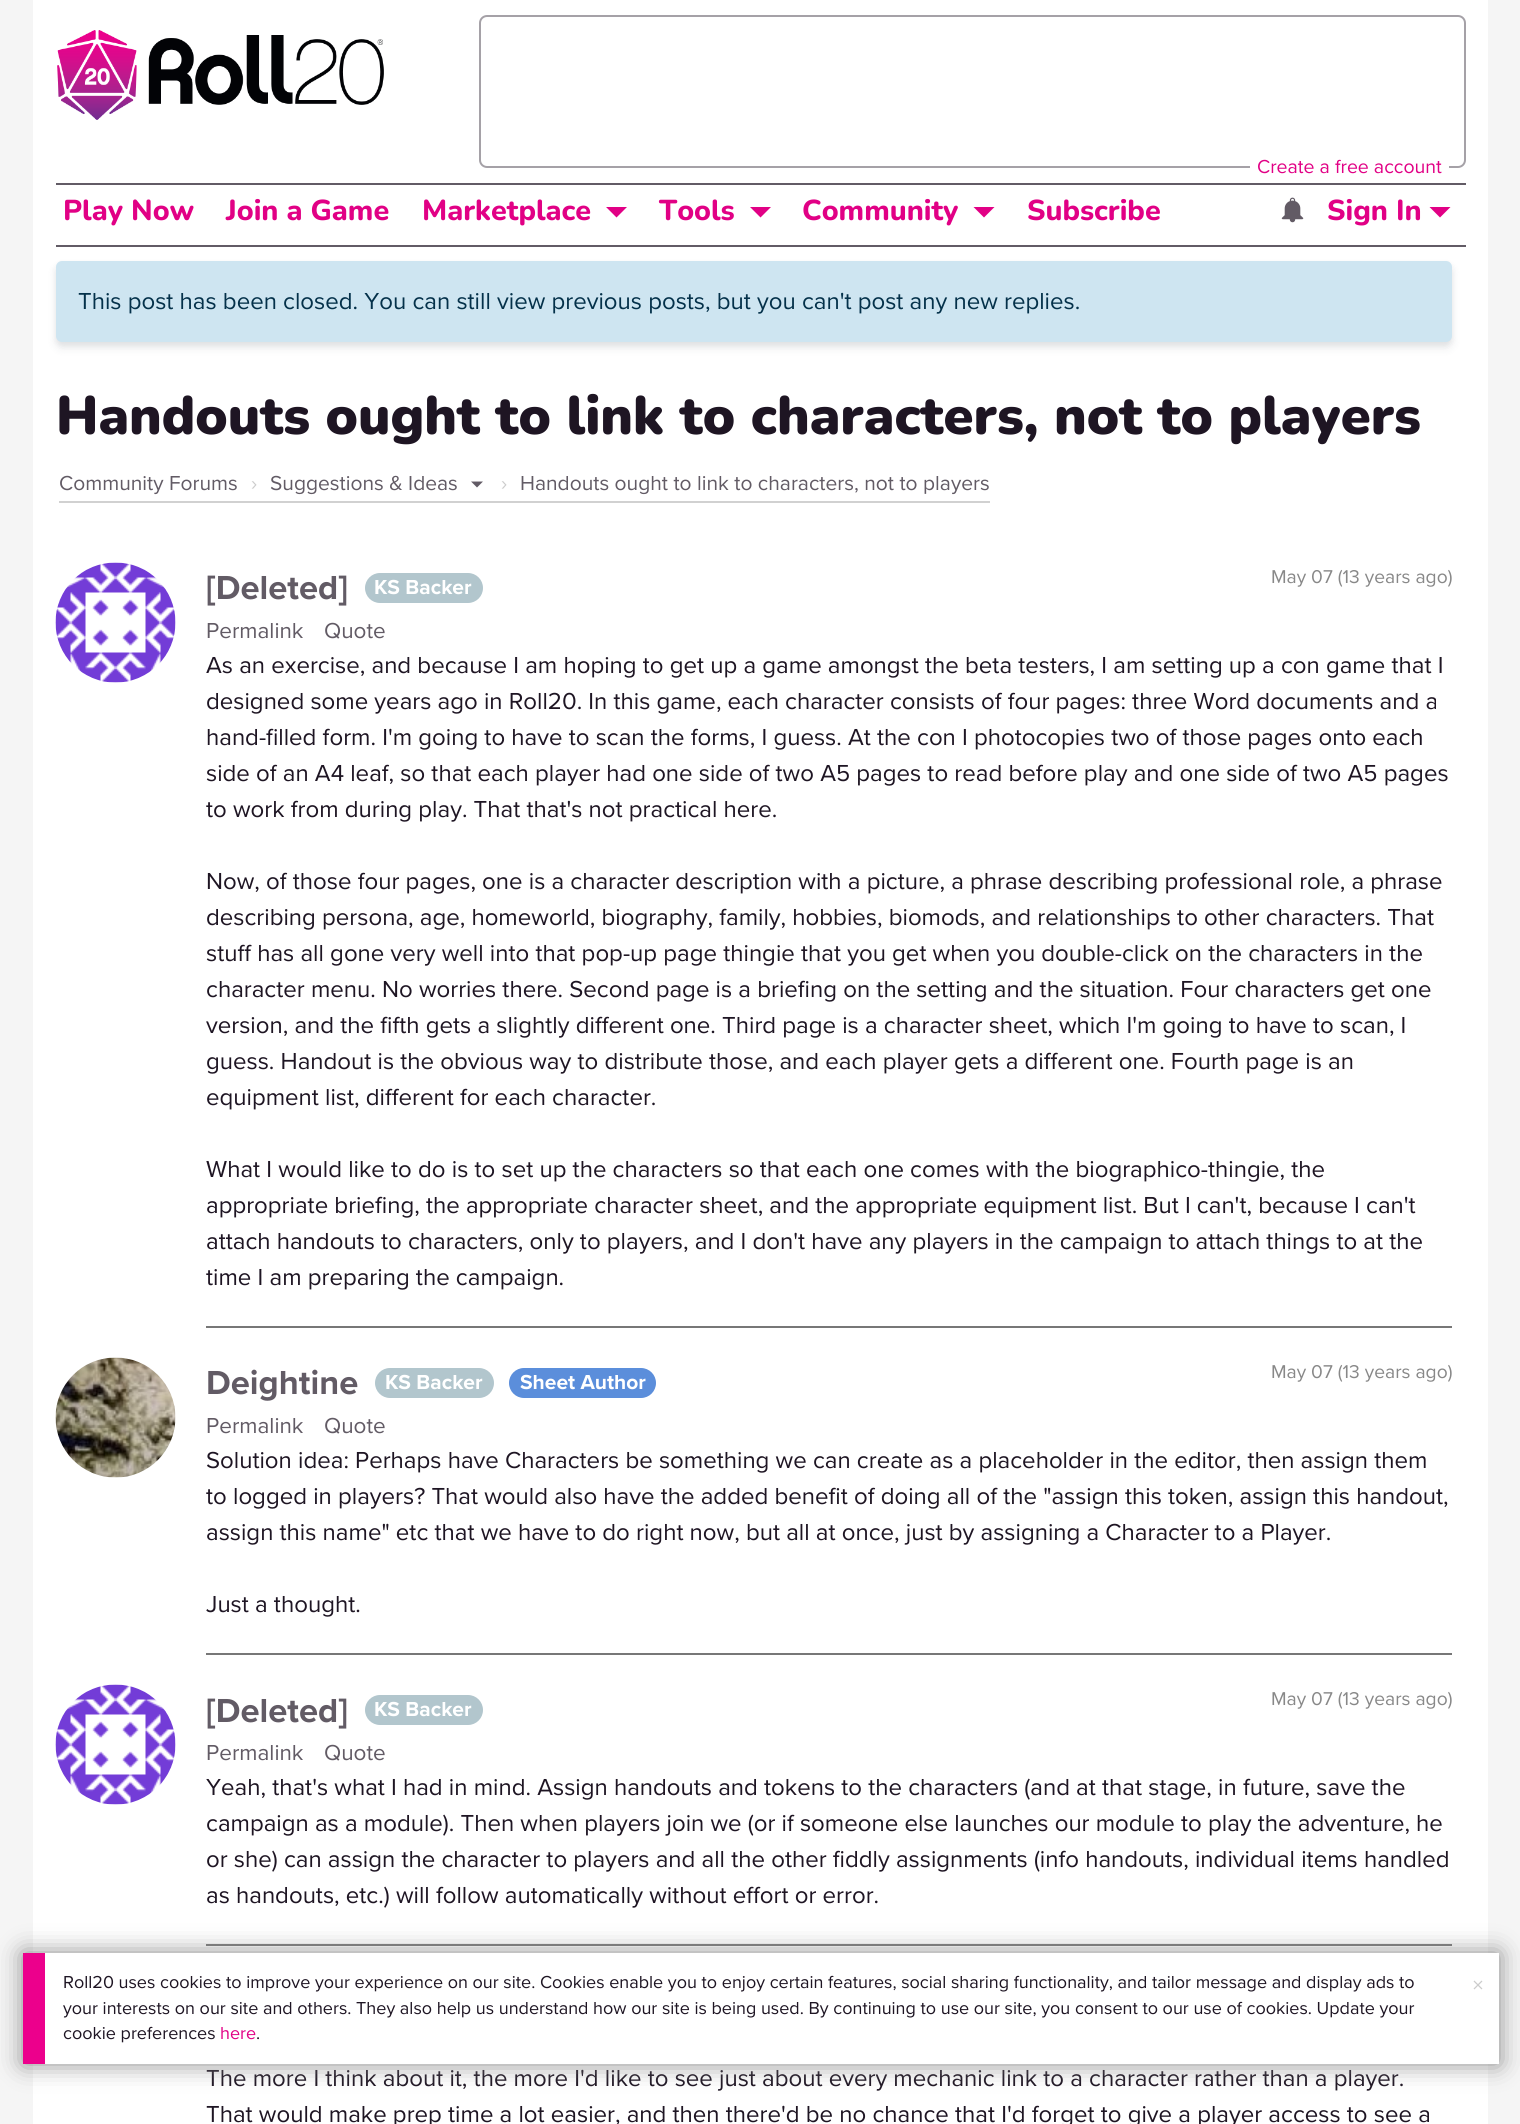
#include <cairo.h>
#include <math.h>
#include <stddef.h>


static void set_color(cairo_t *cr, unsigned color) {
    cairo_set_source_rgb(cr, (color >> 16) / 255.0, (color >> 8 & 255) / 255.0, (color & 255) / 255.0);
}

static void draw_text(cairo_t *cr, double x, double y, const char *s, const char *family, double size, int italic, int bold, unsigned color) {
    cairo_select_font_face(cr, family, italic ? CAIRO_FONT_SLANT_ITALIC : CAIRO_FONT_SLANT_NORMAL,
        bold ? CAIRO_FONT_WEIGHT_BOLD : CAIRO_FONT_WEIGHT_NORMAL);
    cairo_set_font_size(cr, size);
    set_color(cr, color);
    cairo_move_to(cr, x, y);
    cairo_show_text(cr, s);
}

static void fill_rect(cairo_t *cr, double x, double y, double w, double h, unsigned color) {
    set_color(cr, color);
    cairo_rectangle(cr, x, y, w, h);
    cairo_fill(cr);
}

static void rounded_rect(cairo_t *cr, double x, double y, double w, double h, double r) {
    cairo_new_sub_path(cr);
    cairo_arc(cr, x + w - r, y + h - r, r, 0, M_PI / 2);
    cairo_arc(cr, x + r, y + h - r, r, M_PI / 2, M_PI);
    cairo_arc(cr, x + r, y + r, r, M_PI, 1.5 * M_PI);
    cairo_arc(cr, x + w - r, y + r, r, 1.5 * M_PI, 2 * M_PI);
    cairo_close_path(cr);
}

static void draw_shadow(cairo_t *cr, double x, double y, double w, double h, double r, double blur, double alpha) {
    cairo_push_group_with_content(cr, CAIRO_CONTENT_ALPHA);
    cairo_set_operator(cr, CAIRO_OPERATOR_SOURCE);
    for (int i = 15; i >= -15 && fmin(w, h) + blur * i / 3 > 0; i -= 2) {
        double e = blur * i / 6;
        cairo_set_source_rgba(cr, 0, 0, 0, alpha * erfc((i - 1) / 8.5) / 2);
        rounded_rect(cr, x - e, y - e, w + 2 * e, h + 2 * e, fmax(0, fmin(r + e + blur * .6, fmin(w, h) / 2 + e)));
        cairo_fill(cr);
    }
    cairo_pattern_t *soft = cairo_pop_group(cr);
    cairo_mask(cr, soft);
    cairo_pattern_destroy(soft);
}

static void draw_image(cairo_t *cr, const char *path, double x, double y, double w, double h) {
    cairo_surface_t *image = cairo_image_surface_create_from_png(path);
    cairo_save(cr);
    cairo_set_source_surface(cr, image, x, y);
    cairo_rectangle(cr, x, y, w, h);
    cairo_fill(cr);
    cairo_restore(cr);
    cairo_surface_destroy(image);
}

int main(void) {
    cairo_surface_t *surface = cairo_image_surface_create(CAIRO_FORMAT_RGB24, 1520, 2124);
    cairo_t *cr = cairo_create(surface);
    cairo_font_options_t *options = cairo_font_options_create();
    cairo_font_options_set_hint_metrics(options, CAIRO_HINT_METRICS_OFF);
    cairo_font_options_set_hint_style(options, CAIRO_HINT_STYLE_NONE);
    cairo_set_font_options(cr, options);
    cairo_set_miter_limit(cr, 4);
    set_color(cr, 0xF5F5F5);
    cairo_paint(cr);
    fill_rect(cr, 33, 0, 1455, 2124, 0xFFFFFF);
    draw_image(cr, "assets/img1.png", 57, 30, 327, 90);
    rounded_rect(cr, 480, 16, 985, 151, 7);
    set_color(cr, 0xA5A1A7);
    cairo_stroke(cr);
    fill_rect(cr, 1250, 166, 199, 2, 0xFFFFFF);
    draw_text(cr, 1257, 173, "Create a free account", "Proxima Nova", 19.5, 0, 0, 0xE10085);
    fill_rect(cr, 56, 183, 1410, 2, 0x625B65);
    fill_rect(cr, 56, 245, 1410, 2, 0x625B65);
    draw_text(cr, 63, 220, "Play Now", "Nunito ExtraBold", 28.75, 0, 0, 0xE10085);
    draw_text(cr, 226, 220, "Join a Game", "Nunito ExtraBold", 28.75, 0, 0, 0xE10085);
    draw_text(cr, 422, 220, "Marketplace", "Nunito ExtraBold", 28.75, 0, 0, 0xE10085);
    cairo_new_path(cr);
    cairo_move_to(cr, 606, 207);
    cairo_line_to(cr, 627, 207);
    cairo_line_to(cr, 616.5, 217.5);
    cairo_close_path(cr);
    cairo_fill(cr);
    draw_text(cr, 659, 220, "Tools", "Nunito ExtraBold", 28.75, 0, 0, 0xE10085);
    cairo_new_path(cr);
    cairo_move_to(cr, 750, 207);
    cairo_line_to(cr, 771, 207);
    cairo_line_to(cr, 760.5, 217.5);
    cairo_close_path(cr);
    cairo_fill(cr);
    draw_text(cr, 802, 220, "Community", "Nunito ExtraBold", 28.75, 0, 0, 0xE10085);
    cairo_new_path(cr);
    cairo_move_to(cr, 973.5, 207);
    cairo_line_to(cr, 994.5, 207);
    cairo_line_to(cr, 984, 217.5);
    cairo_close_path(cr);
    cairo_fill(cr);
    draw_text(cr, 1027, 220, "Subscribe", "Nunito ExtraBold", 28.75, 0, 0, 0xE10085);
    draw_text(cr, 1281, 218, ":", "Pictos", 28.75, 0, 0, 0x625B65);
    draw_text(cr, 1327, 220, "Sign In", "Nunito ExtraBold", 28.75, 0, 0, 0xE10085);
    cairo_new_path(cr);
    cairo_move_to(cr, 1429.5, 207);
    cairo_line_to(cr, 1450.5, 207);
    cairo_line_to(cr, 1440, 217.5);
    cairo_close_path(cr);
    cairo_fill(cr);
    set_color(cr, 0x1F2937);
    draw_shadow(cr, 56, 264, 1396, 81, 6, 3, 0.06);
    draw_shadow(cr, 56, 267, 1396, 81, 6, 4.5, 0.1);
    set_color(cr, 0xCEE5F1);
    rounded_rect(cr, 56, 261, 1396, 81, 6);
    cairo_fill(cr);
    draw_text(cr, 78, 309, "This post has been closed. You can still view previous posts, but you can't post any new replies.", "Proxima Nova", 24, 0, 0, 0x04314A);
    draw_text(cr, 56, 434, "Handouts ought to link to characters, not to players", "Nunito Black", 54, 0, 0, 0x1E1523);
    fill_rect(cr, 59, 501, 931, 2, 0xD1D1D1);
    draw_text(cr, 59, 490, "Community Forums", "Proxima Nova", 21, 0, 0, 0x625B65);
    draw_text(cr, 251, 490, "›", "Proxima Nova", 21, 0, 0, 0xCCCCCC);
    draw_text(cr, 270, 490, "Suggestions & Ideas", "Proxima Nova", 21, 0, 0, 0x625B65);
    cairo_new_path(cr);
    cairo_move_to(cr, 471, 481.5);
    cairo_line_to(cr, 483, 481.5);
    cairo_line_to(cr, 477, 487.5);
    cairo_close_path(cr);
    cairo_fill(cr);
    draw_text(cr, 501, 490, "›", "Proxima Nova", 21, 0, 0, 0xCCCCCC);
    draw_text(cr, 520, 490, "Handouts ought to link to characters, not to players", "Proxima Nova", 21, 0, 0, 0x625B65);
    draw_image(cr, "assets/img2.png", 55, 562, 121, 121);
    draw_text(cr, 206, 599, "[Deleted]", "Proxima Nova", 34.5, 0, 1, 0x625B65);
    set_color(cr, 0xB2C6CD);
    rounded_rect(cr, 365, 573, 118, 30, 15);
    cairo_fill(cr);
    draw_text(cr, 374, 594, "KS Backer", "Proxima Nova", 21, 0, 1, 0xFFFFFF);
    draw_text(cr, 1271, 583, "May 07 (13 years ago)", "Proxima Nova", 19.25, 0, 0, 0x888888);
    draw_text(cr, 206, 638, "Permalink", "Proxima Nova", 22.5, 0, 0, 0x625B65);
    draw_text(cr, 324, 638, "Quote", "Proxima Nova", 22.5, 0, 0, 0x625B65);
    fill_rect(cr, 206, 1326, 1246, 2, 0x777777);
    draw_text(cr, 206, 673, "As an exercise, and because I am hoping to get up a game amongst the beta testers, I am setting up a con game that I", "Proxima Nova", 24, 0, 0, 0x1E1523);
    draw_text(cr, 206, 709, "designed some years ago in Roll20. In this game, each character consists of four pages: three Word documents and a", "Proxima Nova", 24, 0, 0, 0x1E1523);
    draw_text(cr, 206, 745, "hand-filled form. I'm going to have to scan the forms, I guess. At the con I photocopies two of those pages onto each", "Proxima Nova", 24, 0, 0, 0x1E1523);
    draw_text(cr, 206, 781, "side of an A4 leaf, so that each player had one side of two A5 pages to read before play and one side of two A5 pages", "Proxima Nova", 24, 0, 0, 0x1E1523);
    draw_text(cr, 206, 817, "to work from during play. That that's not practical here.", "Proxima Nova", 24, 0, 0, 0x1E1523);
    draw_text(cr, 206, 889, "Now, of those four pages, one is a character description with a picture, a phrase describing professional role, a phrase", "Proxima Nova", 24, 0, 0, 0x1E1523);
    draw_text(cr, 206, 925, "describing persona, age, homeworld, biography, family, hobbies, biomods, and relationships to other characters. That", "Proxima Nova", 24, 0, 0, 0x1E1523);
    draw_text(cr, 206, 961, "stuff has all gone very well into that pop-up page thingie that you get when you double-click on the characters in the", "Proxima Nova", 24, 0, 0, 0x1E1523);
    draw_text(cr, 206, 997, "character menu. No worries there. Second page is a briefing on the setting and the situation. Four characters get one", "Proxima Nova", 24, 0, 0, 0x1E1523);
    draw_text(cr, 206, 1033, "version, and the fifth gets a slightly different one. Third page is a character sheet, which I'm going to have to scan, I", "Proxima Nova", 24, 0, 0, 0x1E1523);
    draw_text(cr, 206, 1069, "guess. Handout is the obvious way to distribute those, and each player gets a different one. Fourth page is an", "Proxima Nova", 24, 0, 0, 0x1E1523);
    draw_text(cr, 206, 1105, "equipment list, different for each character.", "Proxima Nova", 24, 0, 0, 0x1E1523);
    draw_text(cr, 206, 1177, "What I would like to do is to set up the characters so that each one comes with the biographico-thingie, the", "Proxima Nova", 24, 0, 0, 0x1E1523);
    draw_text(cr, 206, 1213, "appropriate briefing, the appropriate character sheet, and the appropriate equipment list. But I can't, because I can't", "Proxima Nova", 24, 0, 0, 0x1E1523);
    draw_text(cr, 206, 1249, "attach handouts to characters, only to players, and I don't have any players in the campaign to attach things to at the", "Proxima Nova", 24, 0, 0, 0x1E1523);
    draw_text(cr, 206, 1285, "time I am preparing the campaign.", "Proxima Nova", 24, 0, 0, 0x1E1523);
    draw_image(cr, "assets/img3.png", 55, 1357, 121, 121);
    draw_text(cr, 206, 1394, "Deightine", "Proxima Nova", 34.5, 0, 1, 0x625B65);
    set_color(cr, 0xB2C6CD);
    rounded_rect(cr, 375, 1368, 119, 30, 15);
    cairo_fill(cr);
    draw_text(cr, 385, 1389, "KS Backer", "Proxima Nova", 21, 0, 1, 0xFFFFFF);
    set_color(cr, 0x5B8EDB);
    rounded_rect(cr, 509, 1368, 147, 30, 15);
    cairo_fill(cr);
    draw_text(cr, 520, 1389, "Sheet Author", "Proxima Nova", 21, 0, 1, 0xFFFFFF);
    draw_text(cr, 1271, 1378, "May 07 (13 years ago)", "Proxima Nova", 19.25, 0, 0, 0x888888);
    draw_text(cr, 206, 1433, "Permalink", "Proxima Nova", 22.5, 0, 0, 0x625B65);
    draw_text(cr, 324, 1433, "Quote", "Proxima Nova", 22.5, 0, 0, 0x625B65);
    fill_rect(cr, 206, 1653, 1246, 2, 0x777777);
    draw_text(cr, 206, 1468, "Solution idea: Perhaps have Characters be something we can create as a placeholder in the editor, then assign them", "Proxima Nova", 24, 0, 0, 0x1E1523);
    draw_text(cr, 206, 1504, "to logged in players? That would also have the added benefit of doing all of the \"assign this token, assign this handout,", "Proxima Nova", 24, 0, 0, 0x1E1523);
    draw_text(cr, 206, 1540, "assign this name\" etc that we have to do right now, but all at once, just by assigning a Character to a Player.", "Proxima Nova", 24, 0, 0, 0x1E1523);
    draw_text(cr, 206, 1612, "Just a thought.", "Proxima Nova", 24, 0, 0, 0x1E1523);
    draw_image(cr, "assets/img4.png", 55, 1684, 121, 121);
    draw_text(cr, 206, 1722, "[Deleted]", "Proxima Nova", 34.5, 0, 1, 0x625B65);
    set_color(cr, 0xB2C6CD);
    rounded_rect(cr, 365, 1695, 118, 30, 15);
    cairo_fill(cr);
    draw_text(cr, 374, 1716, "KS Backer", "Proxima Nova", 21, 0, 1, 0xFFFFFF);
    draw_text(cr, 1271, 1705, "May 07 (13 years ago)", "Proxima Nova", 19.25, 0, 0, 0x888888);
    draw_text(cr, 206, 1760, "Permalink", "Proxima Nova", 22.5, 0, 0, 0x625B65);
    draw_text(cr, 324, 1760, "Quote", "Proxima Nova", 22.5, 0, 0, 0x625B65);
    fill_rect(cr, 206, 1944, 1246, 2, 0x777777);
    draw_text(cr, 206, 1795, "Yeah, that's what I had in mind. Assign handouts and tokens to the characters (and at that stage, in future, save the", "Proxima Nova", 24, 0, 0, 0x1E1523);
    draw_text(cr, 206, 1831, "campaign as a module). Then when players join we (or if someone else launches our module to play the adventure, he", "Proxima Nova", 24, 0, 0, 0x1E1523);
    draw_text(cr, 206, 1867, "or she) can assign the character to players and all the other fiddly assignments (info handouts, individual items handled", "Proxima Nova", 24, 0, 0, 0x1E1523);
    draw_text(cr, 206, 1903, "as handouts, etc.) will follow automatically without effort or error.", "Proxima Nova", 24, 0, 0, 0x1E1523);
    draw_text(cr, 206, 2086, "The more I think about it, the more I'd like to see just about every mechanic link to a character rather than a player.", "Proxima Nova", 24, 0, 0, 0x1E1523);
    draw_text(cr, 206, 2122, "That would make prep time a lot easier, and then there'd be no chance that I'd forget to give a player access to see a", "Proxima Nova", 24, 0, 0, 0x1E1523);
    set_color(cr, 0x888888);
    draw_shadow(cr, 23, 1953, 1476, 111, 0, 12, 1);
    fill_rect(cr, 45, 1953, 1454, 111, 0xFFFFFF);
    fill_rect(cr, 23, 1953, 22, 111, 0xEC008C);
    draw_text(cr, 63, 1988, "Roll20 uses cookies to improve your experience on our site. Cookies enable you to enjoy certain features, social sharing functionality, and tailor message and display ads to", "Proxima Nova", 18, 0, 0, 0x1E1523);
    draw_text(cr, 63, 2014, "your interests on our site and others. They also help us understand how our site is being used. By continuing to use our site, you consent to our use of cookies. Update your", "Proxima Nova", 18, 0, 0, 0x1E1523);
    draw_text(cr, 63, 2039, "cookie preferences", "Proxima Nova", 18, 0, 0, 0x1E1523);
    draw_text(cr, 220, 2039, "here", "Proxima Nova", 18, 0, 0, 0xE10085);
    draw_text(cr, 256, 2039, ".", "Proxima Nova", 18, 0, 0, 0x1E1523);
    draw_text(cr, 1472, 1993, "×", "Proxima Nova", 24, 0, 0, 0xCCCCCC);
    cairo_surface_write_to_png(surface, "output.png");
    cairo_font_options_destroy(options);
    cairo_destroy(cr);
    cairo_surface_destroy(surface);
    return 0;
}
